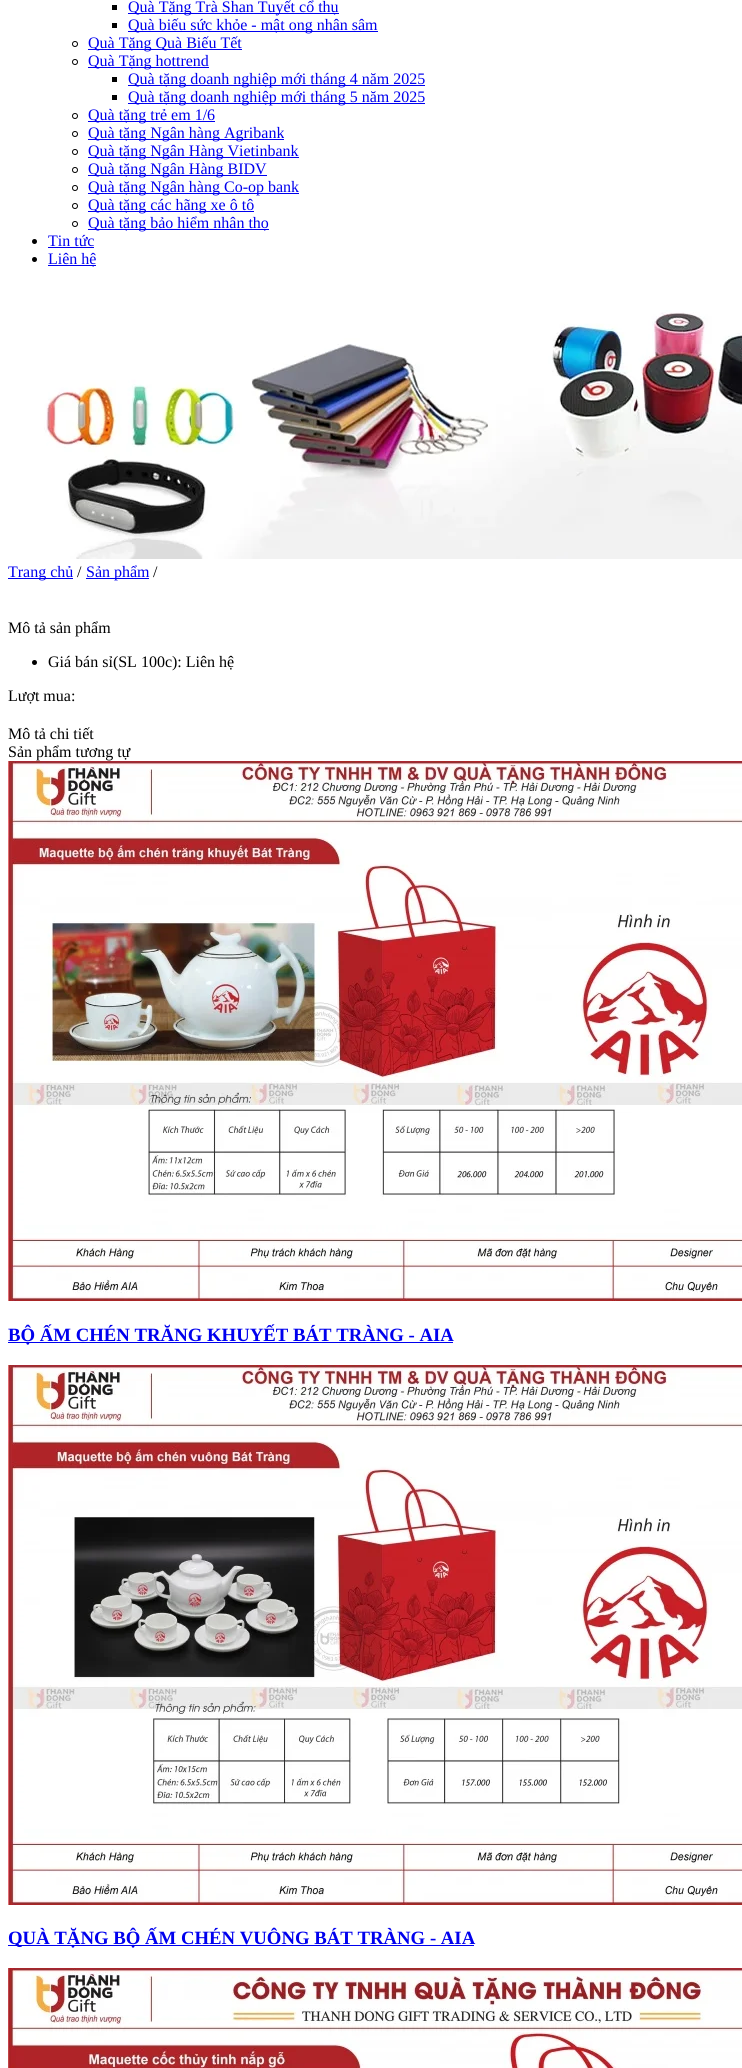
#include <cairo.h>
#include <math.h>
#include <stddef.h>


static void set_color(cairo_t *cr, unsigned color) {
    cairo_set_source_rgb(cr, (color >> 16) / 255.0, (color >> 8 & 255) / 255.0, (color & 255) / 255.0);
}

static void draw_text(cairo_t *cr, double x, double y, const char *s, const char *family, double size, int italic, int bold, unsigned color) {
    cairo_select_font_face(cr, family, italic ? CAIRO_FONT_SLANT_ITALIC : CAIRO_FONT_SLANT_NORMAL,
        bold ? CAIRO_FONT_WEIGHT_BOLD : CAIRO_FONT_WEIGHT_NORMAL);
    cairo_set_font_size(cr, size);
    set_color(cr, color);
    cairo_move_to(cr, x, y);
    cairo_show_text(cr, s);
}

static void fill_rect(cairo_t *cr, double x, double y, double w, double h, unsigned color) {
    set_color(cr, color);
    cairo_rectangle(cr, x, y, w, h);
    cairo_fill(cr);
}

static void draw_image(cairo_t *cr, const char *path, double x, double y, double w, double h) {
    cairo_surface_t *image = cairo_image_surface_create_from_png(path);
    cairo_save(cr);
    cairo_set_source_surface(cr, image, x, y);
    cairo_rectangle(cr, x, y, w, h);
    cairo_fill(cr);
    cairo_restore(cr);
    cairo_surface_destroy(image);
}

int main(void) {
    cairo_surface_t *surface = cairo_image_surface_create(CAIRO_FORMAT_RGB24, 742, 2068);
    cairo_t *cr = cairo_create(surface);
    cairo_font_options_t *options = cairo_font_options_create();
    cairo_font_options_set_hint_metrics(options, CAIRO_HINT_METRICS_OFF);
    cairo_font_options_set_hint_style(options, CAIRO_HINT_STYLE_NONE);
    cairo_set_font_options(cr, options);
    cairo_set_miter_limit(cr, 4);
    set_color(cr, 0xFFFFFF);
    cairo_paint(cr);
    fill_rect(cr, 112, 5, 5, 5, 0x000000);
    fill_rect(cr, 128, 13, 211, 1, 0x0000EE);
    draw_text(cr, 128, 12, "Quà Tặng Trà Shan Tuyết cổ thụ", "Liberation Serif", 16, 0, 0, 0x0000EE);
    fill_rect(cr, 112, 23, 5, 5, 0x000000);
    fill_rect(cr, 128, 31, 250, 1, 0x0000EE);
    draw_text(cr, 128, 30, "Quà biếu sức khỏe - mật ong nhân sâm", "Liberation Serif", 16, 0, 0, 0x0000EE);
    cairo_new_path(cr);
    cairo_arc(cr, 75, 44, 2.5, 0, 2 * M_PI);
    set_color(cr, 0x000000);
    cairo_set_line_width(cr, 1);
    cairo_stroke(cr);
    fill_rect(cr, 88, 49, 154, 1, 0x0000EE);
    draw_text(cr, 88, 48, "Quà Tặng Quà Biếu Tết", "Liberation Serif", 16, 0, 0, 0x0000EE);
    cairo_new_path(cr);
    cairo_arc(cr, 75, 62, 2.5, 0, 2 * M_PI);
    set_color(cr, 0x000000);
    cairo_stroke(cr);
    fill_rect(cr, 88, 67, 121, 1, 0x0000EE);
    draw_text(cr, 88, 66, "Quà Tặng hottrend", "Liberation Serif", 16, 0, 0, 0x0000EE);
    fill_rect(cr, 112, 77, 5, 5, 0x000000);
    fill_rect(cr, 128, 85, 297, 1, 0x0000EE);
    draw_text(cr, 128, 84, "Quà tặng doanh nghiệp mới tháng 4 năm 2025", "Liberation Serif", 16, 0, 0, 0x0000EE);
    fill_rect(cr, 112, 95, 5, 5, 0x000000);
    fill_rect(cr, 128, 103, 297, 1, 0x0000EE);
    draw_text(cr, 128, 102, "Quà tặng doanh nghiệp mới tháng 5 năm 2025", "Liberation Serif", 16, 0, 0, 0x0000EE);
    cairo_new_path(cr);
    cairo_arc(cr, 75, 116, 2.5, 0, 2 * M_PI);
    set_color(cr, 0x000000);
    cairo_stroke(cr);
    fill_rect(cr, 88, 121, 127, 1, 0x0000EE);
    draw_text(cr, 88, 120, "Quà tặng trẻ em 1/6", "Liberation Serif", 16, 0, 0, 0x0000EE);
    cairo_new_path(cr);
    cairo_arc(cr, 75, 134, 2.5, 0, 2 * M_PI);
    set_color(cr, 0x000000);
    cairo_stroke(cr);
    fill_rect(cr, 88, 139, 196, 1, 0x0000EE);
    draw_text(cr, 88, 138, "Quà tặng Ngân hàng Agribank", "Liberation Serif", 16, 0, 0, 0x0000EE);
    cairo_new_path(cr);
    cairo_arc(cr, 75, 152, 2.5, 0, 2 * M_PI);
    set_color(cr, 0x000000);
    cairo_stroke(cr);
    fill_rect(cr, 88, 157, 211, 1, 0x0000EE);
    draw_text(cr, 88, 156, "Quà tặng Ngân Hàng Vietinbank", "Liberation Serif", 16, 0, 0, 0x0000EE);
    cairo_new_path(cr);
    cairo_arc(cr, 75, 170, 2.5, 0, 2 * M_PI);
    set_color(cr, 0x000000);
    cairo_stroke(cr);
    fill_rect(cr, 88, 175, 179, 1, 0x0000EE);
    draw_text(cr, 88, 174, "Quà tặng Ngân Hàng BIDV", "Liberation Serif", 16, 0, 0, 0x0000EE);
    cairo_new_path(cr);
    cairo_arc(cr, 75, 188, 2.5, 0, 2 * M_PI);
    set_color(cr, 0x000000);
    cairo_stroke(cr);
    fill_rect(cr, 88, 193, 211, 1, 0x0000EE);
    draw_text(cr, 88, 192, "Quà tặng Ngân hàng Co-op bank", "Liberation Serif", 16, 0, 0, 0x0000EE);
    cairo_new_path(cr);
    cairo_arc(cr, 75, 206, 2.5, 0, 2 * M_PI);
    set_color(cr, 0x000000);
    cairo_stroke(cr);
    fill_rect(cr, 88, 211, 166, 1, 0x0000EE);
    draw_text(cr, 88, 210, "Quà tặng các hãng xe ô tô", "Liberation Serif", 16, 0, 0, 0x0000EE);
    cairo_new_path(cr);
    cairo_arc(cr, 75, 224, 2.5, 0, 2 * M_PI);
    set_color(cr, 0x000000);
    cairo_stroke(cr);
    fill_rect(cr, 88, 229, 181, 1, 0x0000EE);
    draw_text(cr, 88, 228, "Quà tặng bảo hiểm nhân thọ", "Liberation Serif", 16, 0, 0, 0x0000EE);
    set_color(cr, 0x000000);
    cairo_new_path(cr);
    cairo_arc(cr, 34.5, 241.5, 2.5, 0, 2 * M_PI);
    cairo_fill(cr);
    draw_text(cr, 48, 246, "Tin tức", "Liberation Serif", 16, 0, 0, 0x0000EE);
    fill_rect(cr, 48, 247, 46, 1, 0x0000EE);
    set_color(cr, 0x000000);
    cairo_new_path(cr);
    cairo_arc(cr, 34.5, 259.5, 2.5, 0, 2 * M_PI);
    cairo_fill(cr);
    fill_rect(cr, 48, 265, 48, 1, 0x0000EE);
    draw_text(cr, 48, 264, "Liên hệ", "Liberation Serif", 16, 0, 0, 0x0000EE);
    draw_image(cr, "assets/img1.png", 44, 310, 698, 249);
    fill_rect(cr, 8, 578, 65, 1, 0x0000EE);
    draw_text(cr, 8, 577, "Trang chủ", "Liberation Serif", 16, 0, 0, 0x0000EE);
    draw_text(cr, 77, 577, "/", "Liberation Serif", 16, 0, 0, 0x000000);
    fill_rect(cr, 86, 578, 63, 1, 0x0000EE);
    draw_text(cr, 86, 577, "Sản phẩm", "Liberation Serif", 16, 0, 0, 0x0000EE);
    draw_text(cr, 153, 577, "/", "Liberation Serif", 16, 0, 0, 0x000000);
    draw_text(cr, 8, 633, "Mô tả sản phẩm", "Liberation Serif", 16, 0, 0, 0x000000);
    cairo_new_path(cr);
    cairo_arc(cr, 34.5, 662.5, 2.5, 0, 2 * M_PI);
    cairo_fill(cr);
    draw_text(cr, 48, 667, "Giá bán sỉ(SL 100c): Liên hệ", "Liberation Serif", 16, 0, 0, 0x000000);
    draw_text(cr, 8, 701, "Lượt mua:", "Liberation Serif", 16, 0, 0, 0x000000);
    draw_text(cr, 8, 739, "Mô tả chi tiết", "Liberation Serif", 16, 0, 0, 0x000000);
    draw_text(cr, 8, 757, "Sản phẩm tương tự", "Liberation Serif", 16, 0, 0, 0x000000);
    draw_image(cr, "assets/img2.png", 8, 761, 734, 540);
    fill_rect(cr, 8, 1342, 445, 1, 0x0000EE);
    draw_text(cr, 8, 1341, "BỘ ẤM CHÉN TRĂNG KHUYẾT BÁT TRÀNG - AIA", "Liberation Serif", 18.75, 0, 1, 0x0000EE);
    draw_image(cr, "assets/img3.png", 8, 1365, 734, 540);
    fill_rect(cr, 8, 1945, 466, 1, 0x0000EE);
    draw_text(cr, 8, 1944, "QUÀ TẶNG BỘ ẤM CHÉN VUÔNG BÁT TRÀNG - AIA", "Liberation Serif", 18.75, 0, 1, 0x0000EE);
    draw_image(cr, "assets/img4.png", 8, 1968, 734, 100);
    cairo_surface_write_to_png(surface, "output.png");
    cairo_font_options_destroy(options);
    cairo_destroy(cr);
    cairo_surface_destroy(surface);
    return 0;
}
